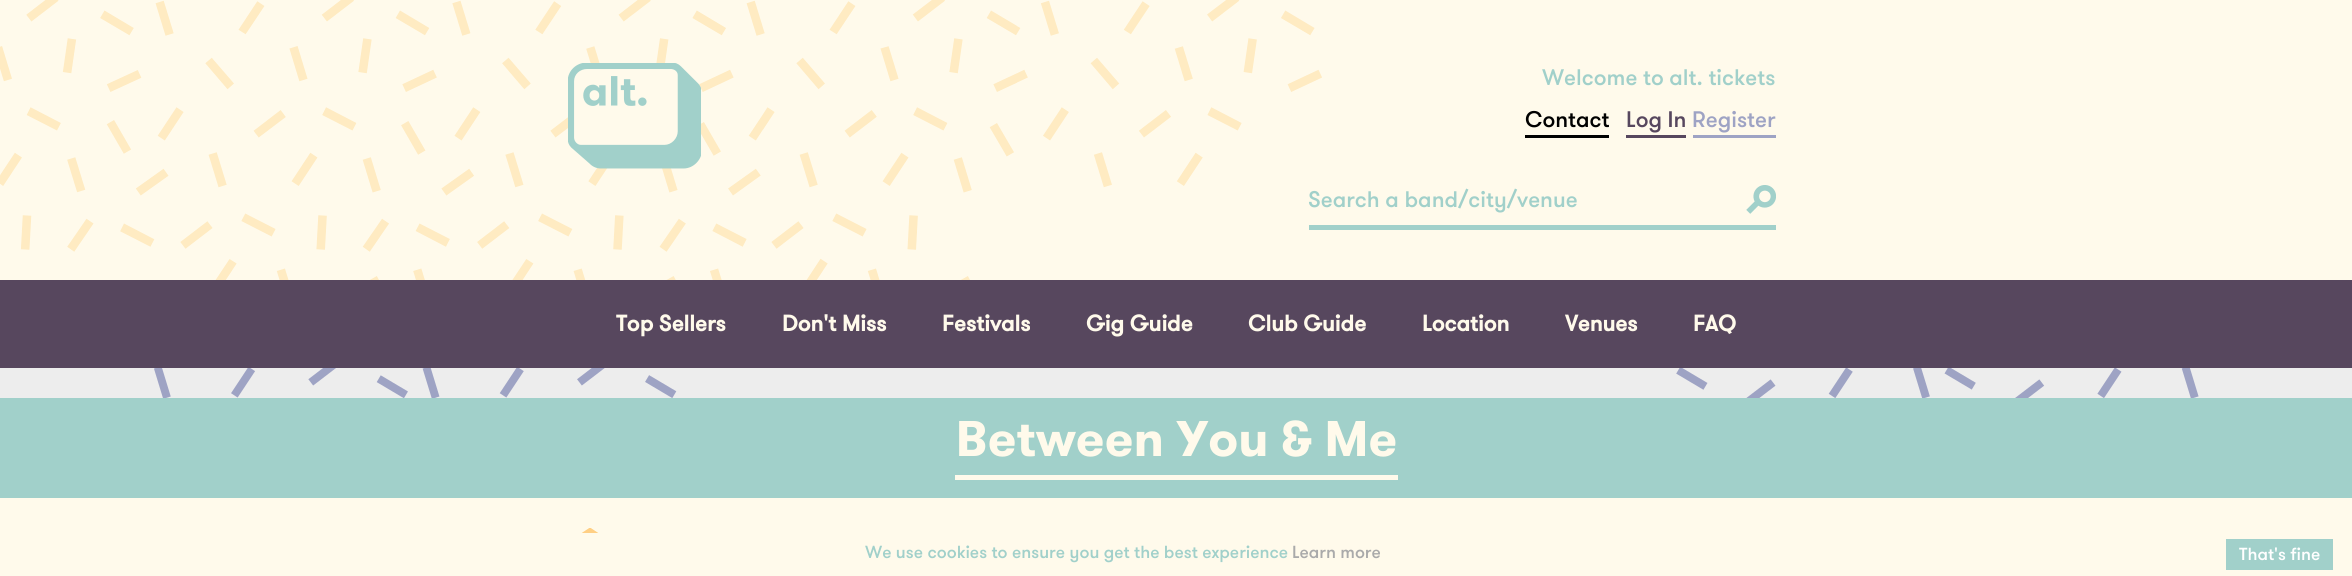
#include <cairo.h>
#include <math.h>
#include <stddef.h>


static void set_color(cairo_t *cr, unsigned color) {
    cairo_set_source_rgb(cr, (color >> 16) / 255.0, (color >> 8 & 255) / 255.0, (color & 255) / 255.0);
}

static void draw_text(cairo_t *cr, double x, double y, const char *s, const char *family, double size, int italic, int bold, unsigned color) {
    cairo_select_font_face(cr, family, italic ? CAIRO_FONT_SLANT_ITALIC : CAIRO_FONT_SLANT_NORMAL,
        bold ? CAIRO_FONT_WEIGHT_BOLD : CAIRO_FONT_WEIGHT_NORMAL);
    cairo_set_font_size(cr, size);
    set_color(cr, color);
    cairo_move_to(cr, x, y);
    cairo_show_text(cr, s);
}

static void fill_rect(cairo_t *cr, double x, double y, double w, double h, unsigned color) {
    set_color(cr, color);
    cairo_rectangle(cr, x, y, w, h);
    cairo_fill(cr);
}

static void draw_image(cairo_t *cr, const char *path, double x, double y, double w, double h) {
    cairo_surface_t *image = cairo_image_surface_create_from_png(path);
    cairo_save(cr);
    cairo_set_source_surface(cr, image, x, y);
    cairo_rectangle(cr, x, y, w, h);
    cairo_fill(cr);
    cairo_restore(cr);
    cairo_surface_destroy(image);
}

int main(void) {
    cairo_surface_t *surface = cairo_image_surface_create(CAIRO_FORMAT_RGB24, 2352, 576);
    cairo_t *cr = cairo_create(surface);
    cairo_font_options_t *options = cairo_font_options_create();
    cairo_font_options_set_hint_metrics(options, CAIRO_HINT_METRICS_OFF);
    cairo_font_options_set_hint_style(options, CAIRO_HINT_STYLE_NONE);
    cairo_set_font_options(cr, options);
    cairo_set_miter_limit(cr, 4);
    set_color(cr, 0xFFFAEB);
    cairo_paint(cr);
    draw_image(cr, "assets/img1.png", 0, 0, 1322, 280);
    draw_image(cr, "assets/img2.png", 568, 63, 133, 106);
    draw_text(cr, 1542, 85, "Welcome to alt. tickets", "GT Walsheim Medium", 22.5, 0, 0, 0xA1D0CA);
    fill_rect(cr, 1525, 135, 84, 3, 0x000000);
    draw_text(cr, 1525, 127, "Contact", "GT Walsheim Medium", 22.5, 0, 0, 0x000000);
    fill_rect(cr, 1626, 135, 60, 3, 0x57475E);
    draw_text(cr, 1626, 127, "Log In", "GT Walsheim Medium", 22.5, 0, 0, 0x57475E);
    fill_rect(cr, 1693, 135, 83, 3, 0x9EA3C4);
    draw_text(cr, 1692, 127, "Register", "GT Walsheim Medium", 22.5, 0, 0, 0x9EA3C4);
    fill_rect(cr, 1309, 225, 467, 5, 0xA1D0CA);
    draw_text(cr, 1308, 207, "Search a band/city/venue", "GT Walsheim Medium", 22.5, 0, 0, 0xA1D0CA);
    draw_image(cr, "assets/img3.png", 1746, 185, 30, 29);
    fill_rect(cr, 0, 280, 2352, 88, 0x57475E);
    draw_text(cr, 616, 331, "Top Sellers", "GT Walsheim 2", 22.5, 0, 1, 0xFFFAEB);
    draw_text(cr, 782, 331, "Don't Miss", "GT Walsheim 2", 22.5, 0, 1, 0xFFFAEB);
    draw_text(cr, 942, 331, "Festivals", "GT Walsheim 2", 22.5, 0, 1, 0xFFFAEB);
    draw_text(cr, 1086, 331, "Gig Guide", "GT Walsheim 2", 22.5, 0, 1, 0xFFFAEB);
    draw_text(cr, 1248, 331, "Club Guide", "GT Walsheim 2", 22.5, 0, 1, 0xFFFAEB);
    draw_text(cr, 1422, 331, "Location", "GT Walsheim 2", 22.5, 0, 1, 0xFFFAEB);
    draw_text(cr, 1565, 331, "Venues", "GT Walsheim 2", 22.5, 0, 1, 0xFFFAEB);
    draw_text(cr, 1693, 331, "FAQ", "GT Walsheim 2", 22.5, 0, 1, 0xFFFAEB);
    fill_rect(cr, 0, 368, 2352, 30, 0xEDEDED);
    draw_image(cr, "assets/img4.png", 154, 368, 523, 30);
    draw_image(cr, "assets/img5.png", 1676, 368, 523, 30);
    fill_rect(cr, 0, 398, 2352, 100, 0xA1D0CA);
    fill_rect(cr, 955, 475, 443, 5, 0xFFFAEB);
    draw_text(cr, 956, 456, "Between You & Me", "GT Walsheim", 50, 0, 1, 0xFFFAEB);
    draw_image(cr, "assets/img6.png", 581, 528, 18, 5);
    draw_text(cr, 865, 558, "We use cookies to ensure you get the best experience", "GT Walsheim Medium", 17.5, 0, 0, 0xA1D0CA);
    draw_text(cr, 1292, 558, "Learn more", "GT Walsheim Medium", 17.5, 0, 0, 0xAAAAAA);
    fill_rect(cr, 2226, 539, 107, 31, 0xA1D0CA);
    draw_text(cr, 2239, 560, "That's fine", "GT Walsheim Medium", 17.5, 0, 0, 0xFFFFFF);
    cairo_surface_write_to_png(surface, "output.png");
    cairo_font_options_destroy(options);
    cairo_destroy(cr);
    cairo_surface_destroy(surface);
    return 0;
}
